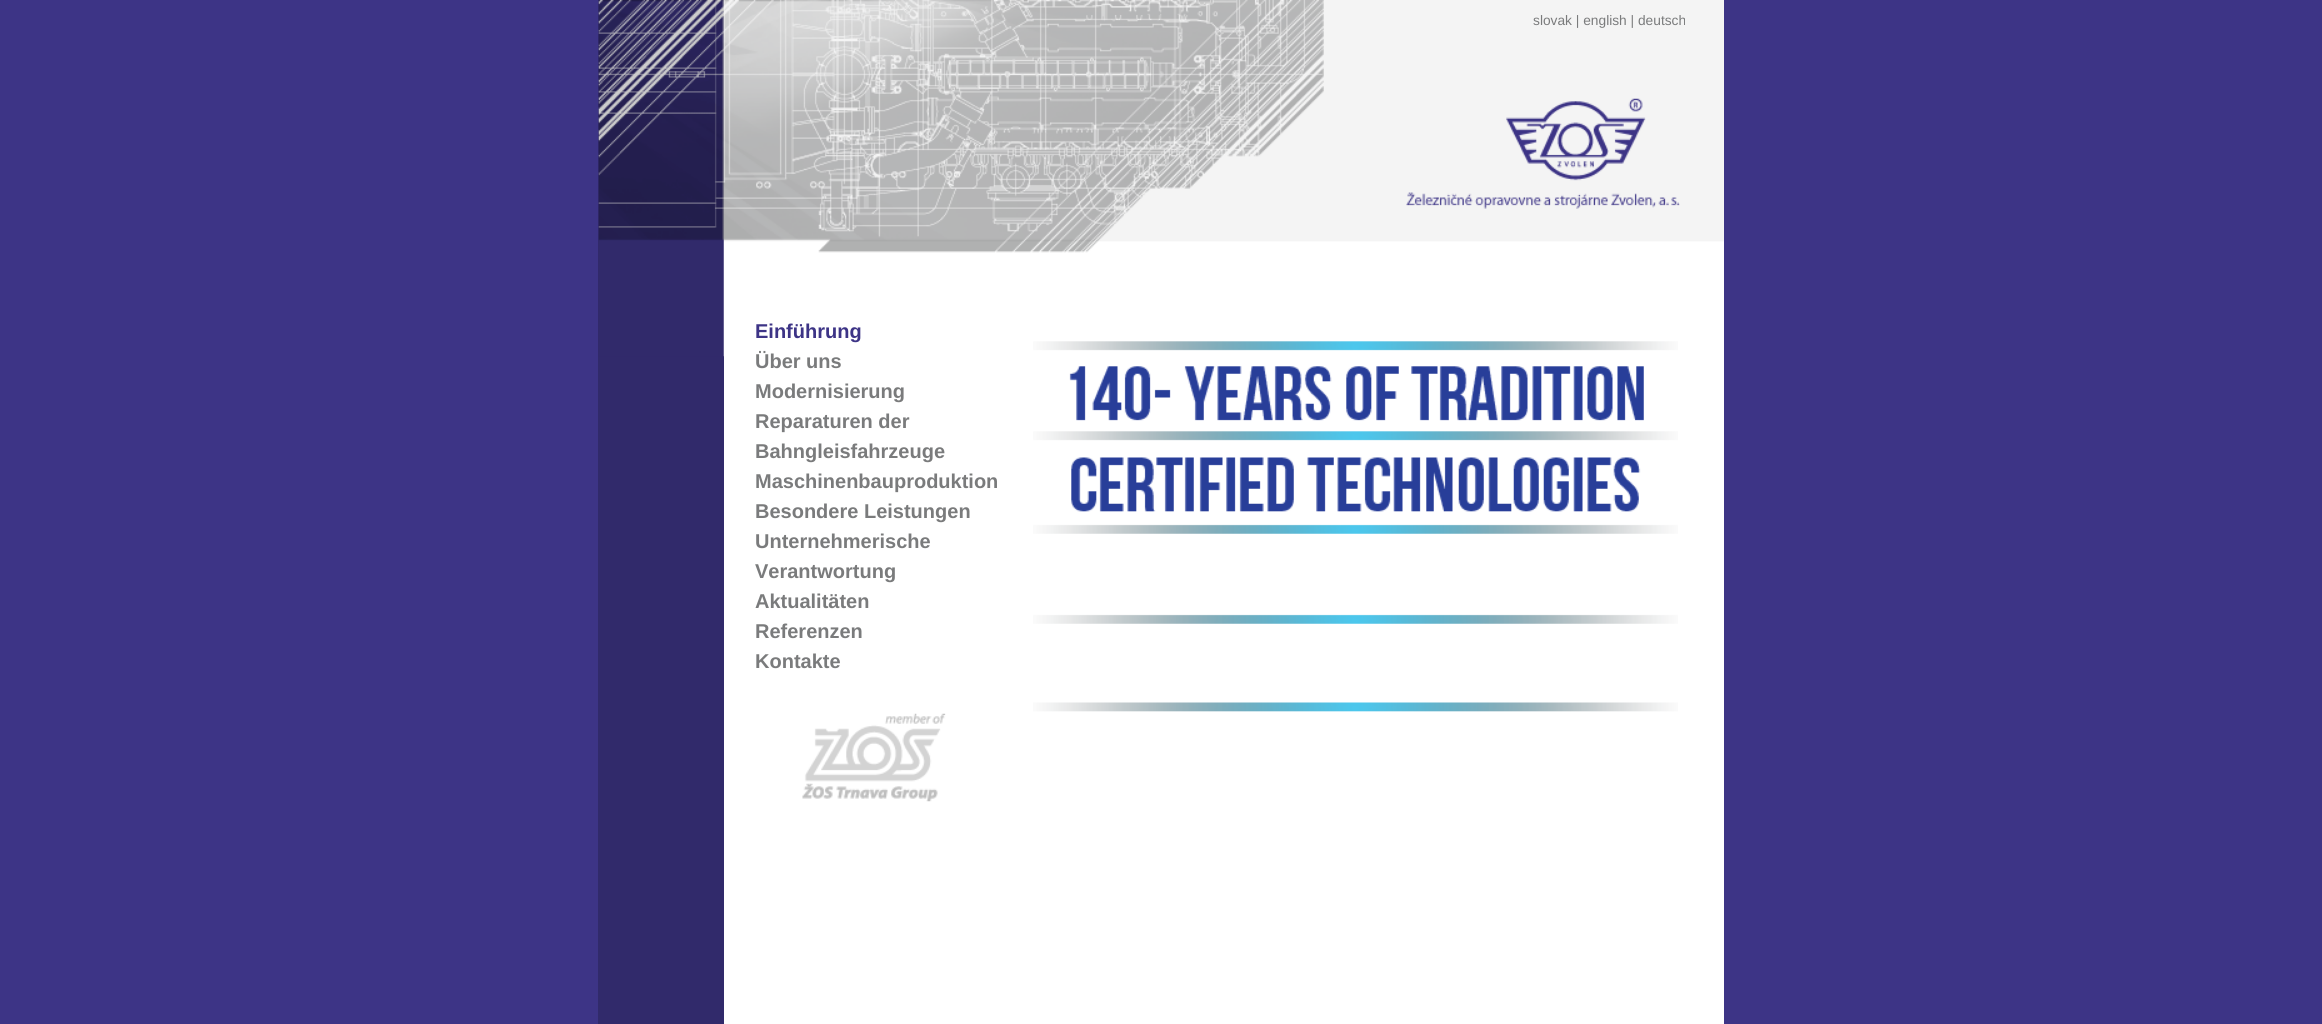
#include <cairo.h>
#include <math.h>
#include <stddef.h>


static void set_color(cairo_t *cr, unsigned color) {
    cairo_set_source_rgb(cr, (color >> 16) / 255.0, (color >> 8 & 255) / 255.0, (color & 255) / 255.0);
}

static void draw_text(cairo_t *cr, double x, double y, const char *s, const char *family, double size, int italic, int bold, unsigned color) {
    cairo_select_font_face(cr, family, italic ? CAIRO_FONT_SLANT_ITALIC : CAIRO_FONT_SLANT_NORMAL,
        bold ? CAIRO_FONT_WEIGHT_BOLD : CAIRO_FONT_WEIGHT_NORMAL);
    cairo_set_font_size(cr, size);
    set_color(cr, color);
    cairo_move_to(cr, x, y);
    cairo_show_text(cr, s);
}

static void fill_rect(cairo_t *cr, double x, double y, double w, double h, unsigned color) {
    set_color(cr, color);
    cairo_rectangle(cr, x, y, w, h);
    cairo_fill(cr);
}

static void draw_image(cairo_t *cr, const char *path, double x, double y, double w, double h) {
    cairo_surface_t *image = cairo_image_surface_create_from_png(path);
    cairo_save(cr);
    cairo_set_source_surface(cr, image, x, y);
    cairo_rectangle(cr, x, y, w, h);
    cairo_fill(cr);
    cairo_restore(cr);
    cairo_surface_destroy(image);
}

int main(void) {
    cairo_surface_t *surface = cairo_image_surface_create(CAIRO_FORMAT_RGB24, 2322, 1024);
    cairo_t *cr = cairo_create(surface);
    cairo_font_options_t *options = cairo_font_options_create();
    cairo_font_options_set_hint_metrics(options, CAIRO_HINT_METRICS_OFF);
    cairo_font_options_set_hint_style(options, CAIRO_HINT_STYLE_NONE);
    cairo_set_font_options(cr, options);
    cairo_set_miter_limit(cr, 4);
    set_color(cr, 0x3D3486);
    cairo_paint(cr);
    fill_rect(cr, 724, 0, 1000, 1024, 0xFFFFFF);
    fill_rect(cr, 598, 0, 126, 1024, 0x312A6B);
    draw_image(cr, "assets/img1.png", 598, 0, 1126, 357);
    draw_text(cr, 1533, 25, "slovak | english | deutsch", "Liberation Sans", 13.75, 0, 0, 0x7A7B7C);
    draw_image(cr, "assets/img2.png", 1406, 98, 274, 111);
    draw_text(cr, 755, 338, "Einführung", "Liberation Sans", 20, 0, 1, 0x3D3486);
    draw_text(cr, 755, 368, "Über uns", "Liberation Sans", 20, 0, 1, 0x7A7B7C);
    draw_text(cr, 755, 398, "Modernisierung", "Liberation Sans", 20, 0, 1, 0x7A7B7C);
    draw_text(cr, 755, 428, "Reparaturen der", "Liberation Sans", 20, 0, 1, 0x7A7B7C);
    draw_text(cr, 755, 458, "Bahngleisfahrzeuge", "Liberation Sans", 20, 0, 1, 0x7A7B7C);
    draw_text(cr, 755, 488, "Maschinenbauproduktion", "Liberation Sans", 20, 0, 1, 0x7A7B7C);
    draw_text(cr, 755, 518, "Besondere Leistungen", "Liberation Sans", 20, 0, 1, 0x7A7B7C);
    draw_text(cr, 755, 548, "Unternehmerische", "Liberation Sans", 20, 0, 1, 0x7A7B7C);
    draw_text(cr, 755, 578, "Verantwortung", "Liberation Sans", 20, 0, 1, 0x7A7B7C);
    draw_text(cr, 755, 608, "Aktualitäten", "Liberation Sans", 20, 0, 1, 0x7A7B7C);
    draw_text(cr, 755, 638, "Referenzen", "Liberation Sans", 20, 0, 1, 0x7A7B7C);
    draw_text(cr, 755, 668, "Kontakte", "Liberation Sans", 20, 0, 1, 0x7A7B7C);
    draw_image(cr, "assets/img3.png", 802, 713, 144, 89);
    draw_image(cr, "assets/img4.png", 1033, 341, 645, 371);
    cairo_surface_write_to_png(surface, "output.png");
    cairo_font_options_destroy(options);
    cairo_destroy(cr);
    cairo_surface_destroy(surface);
    return 0;
}
